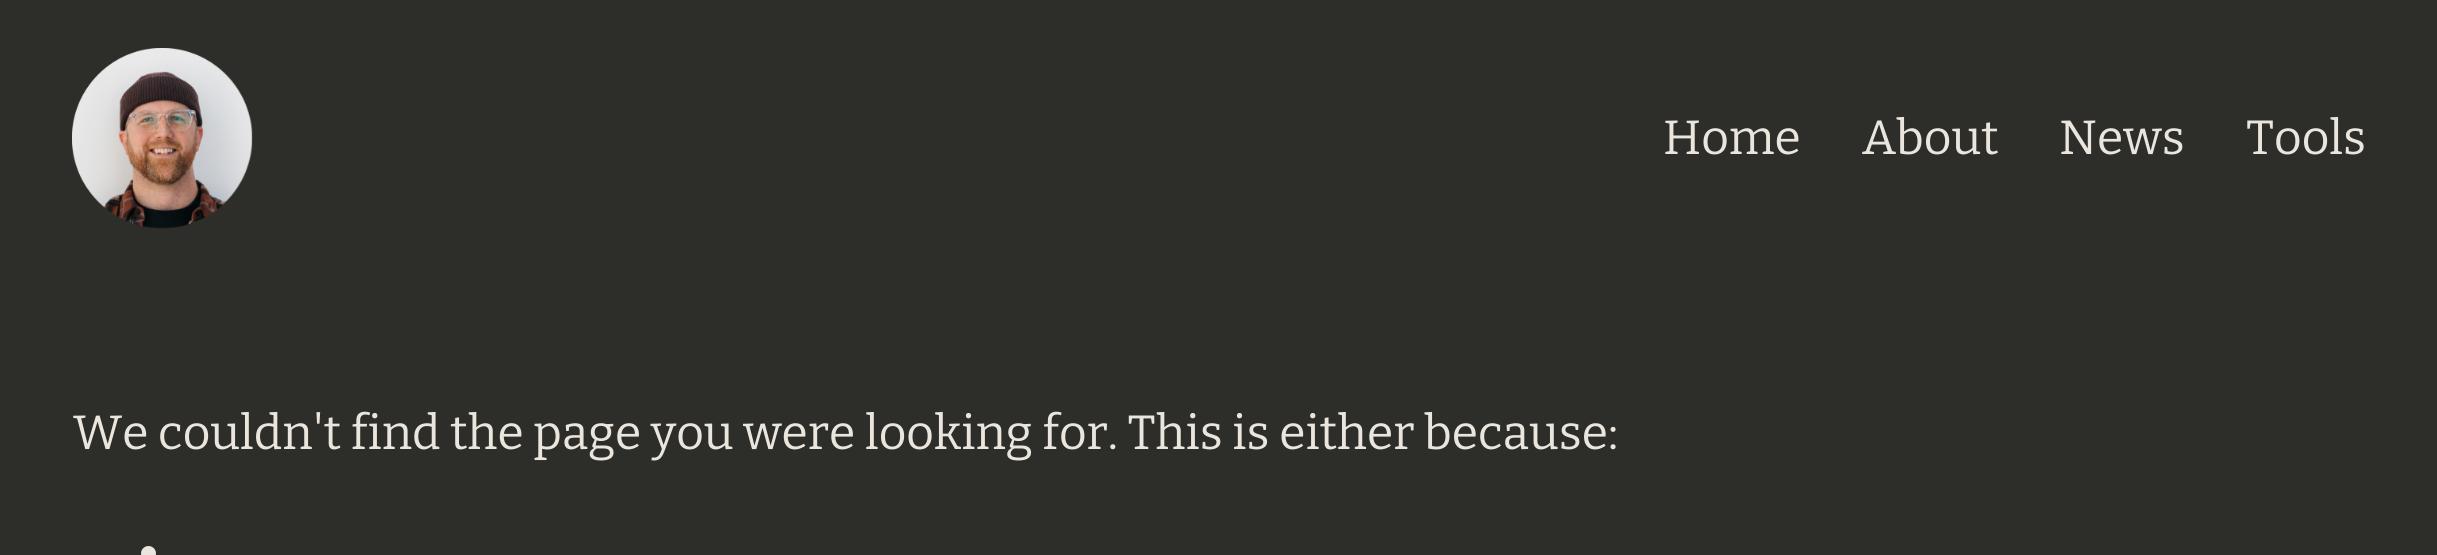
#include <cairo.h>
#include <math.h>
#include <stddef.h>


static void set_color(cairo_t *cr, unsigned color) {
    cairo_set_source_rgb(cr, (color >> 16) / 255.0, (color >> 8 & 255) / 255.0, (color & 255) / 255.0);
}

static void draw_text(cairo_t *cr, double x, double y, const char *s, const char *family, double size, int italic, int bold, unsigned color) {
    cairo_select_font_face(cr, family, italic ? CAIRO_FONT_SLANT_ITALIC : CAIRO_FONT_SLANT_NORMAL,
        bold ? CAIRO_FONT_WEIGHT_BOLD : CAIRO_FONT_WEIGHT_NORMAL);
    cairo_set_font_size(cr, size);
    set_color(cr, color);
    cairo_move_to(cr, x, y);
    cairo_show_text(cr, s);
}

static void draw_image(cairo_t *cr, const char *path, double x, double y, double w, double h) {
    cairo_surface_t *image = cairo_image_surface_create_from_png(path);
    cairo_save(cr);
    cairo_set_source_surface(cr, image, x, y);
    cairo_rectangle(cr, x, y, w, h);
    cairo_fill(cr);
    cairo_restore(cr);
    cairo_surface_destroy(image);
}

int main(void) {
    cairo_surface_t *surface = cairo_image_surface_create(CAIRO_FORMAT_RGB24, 2437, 555);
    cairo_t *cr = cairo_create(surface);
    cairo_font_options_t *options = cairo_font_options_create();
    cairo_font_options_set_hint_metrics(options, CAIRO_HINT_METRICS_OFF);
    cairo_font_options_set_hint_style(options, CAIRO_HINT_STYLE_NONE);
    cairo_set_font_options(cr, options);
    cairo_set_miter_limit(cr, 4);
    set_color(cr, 0x2D2D2A);
    cairo_paint(cr);
    draw_image(cr, "assets/img1.png", 72, 48, 181, 181);
    draw_text(cr, 1663, 154, "Home", "Bitter", 48, 0, 0, 0xEAE6DD);
    draw_text(cr, 1862, 154, "About", "Bitter", 48, 0, 0, 0xEAE6DD);
    draw_text(cr, 2059, 154, "News", "Bitter", 48, 0, 0, 0xEAE6DD);
    draw_text(cr, 2246, 154, "Tools", "Bitter", 48, 0, 0, 0xEAE6DD);
    draw_text(cr, 73, 449, "We couldn't find the page you were looking for. This is either because:", "Bitter", 48, 0, 0, 0xEAE6DD);
    cairo_new_path(cr);
    cairo_arc(cr, 148.5, 553.5, 7.5, 0, 2 * M_PI);
    cairo_fill(cr);
    cairo_surface_write_to_png(surface, "output.png");
    cairo_font_options_destroy(options);
    cairo_destroy(cr);
    cairo_surface_destroy(surface);
    return 0;
}
